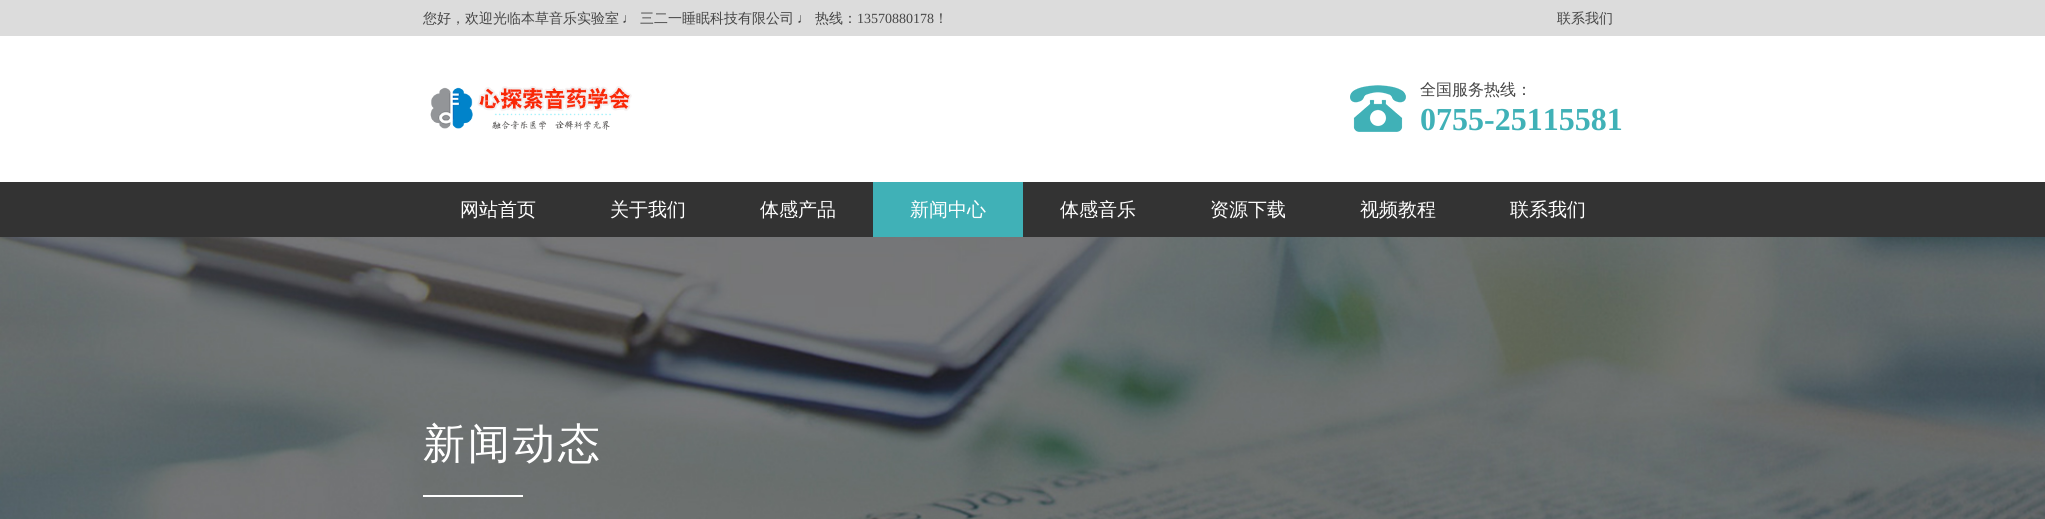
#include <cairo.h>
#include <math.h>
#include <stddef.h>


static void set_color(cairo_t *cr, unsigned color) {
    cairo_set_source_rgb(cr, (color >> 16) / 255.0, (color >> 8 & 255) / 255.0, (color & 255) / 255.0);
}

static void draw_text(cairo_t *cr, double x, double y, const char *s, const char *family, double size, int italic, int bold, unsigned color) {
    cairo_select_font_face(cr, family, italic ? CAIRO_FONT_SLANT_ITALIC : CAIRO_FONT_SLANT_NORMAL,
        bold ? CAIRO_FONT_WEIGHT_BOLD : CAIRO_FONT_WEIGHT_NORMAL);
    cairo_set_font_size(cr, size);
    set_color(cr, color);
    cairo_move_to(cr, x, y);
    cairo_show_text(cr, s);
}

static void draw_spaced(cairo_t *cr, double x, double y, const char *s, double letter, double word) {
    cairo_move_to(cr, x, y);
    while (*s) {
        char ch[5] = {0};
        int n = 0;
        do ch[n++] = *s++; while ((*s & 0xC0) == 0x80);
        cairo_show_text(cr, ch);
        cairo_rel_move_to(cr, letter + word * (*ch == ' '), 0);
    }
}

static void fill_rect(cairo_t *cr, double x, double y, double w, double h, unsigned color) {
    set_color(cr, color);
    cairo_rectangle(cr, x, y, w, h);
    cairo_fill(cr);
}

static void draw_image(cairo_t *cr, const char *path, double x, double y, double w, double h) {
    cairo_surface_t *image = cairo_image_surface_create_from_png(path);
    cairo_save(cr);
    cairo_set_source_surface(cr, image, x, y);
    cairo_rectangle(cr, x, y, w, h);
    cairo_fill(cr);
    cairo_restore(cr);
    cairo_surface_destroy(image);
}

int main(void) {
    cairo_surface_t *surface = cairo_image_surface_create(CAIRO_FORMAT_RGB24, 2045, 519);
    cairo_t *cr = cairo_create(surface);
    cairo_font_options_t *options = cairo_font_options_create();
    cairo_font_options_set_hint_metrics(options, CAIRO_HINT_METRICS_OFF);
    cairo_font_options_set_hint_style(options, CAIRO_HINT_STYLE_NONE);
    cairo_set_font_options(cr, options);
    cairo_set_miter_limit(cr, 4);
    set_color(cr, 0xFFFFFF);
    cairo_paint(cr);
    fill_rect(cr, 0, 0, 2045, 36, 0xDCDCDC);
    draw_text(cr, 423, 23, "您好，欢迎光临本草音乐实验室", "WenQuanYi Zen Hei Medium", 14, 0, 0, 0x454545);
    draw_text(cr, 622, 23, "♩", "Liberation Serif", 14, 0, 0, 0x454545);
    draw_text(cr, 640, 23, "三二一睡眠科技有限公司", "WenQuanYi Zen Hei Medium", 14, 0, 0, 0x454545);
    draw_text(cr, 797, 23, "♩", "Liberation Serif", 14, 0, 0, 0x454545);
    draw_text(cr, 815, 23, "热线：", "WenQuanYi Zen Hei Medium", 14, 0, 0, 0x454545);
    draw_text(cr, 857, 23, "13570880178", "Liberation Serif", 14, 0, 0, 0x454545);
    draw_text(cr, 934, 23, "！", "WenQuanYi Zen Hei Medium", 14, 0, 0, 0x454545);
    draw_text(cr, 1557, 23, "联系我们", "WenQuanYi Zen Hei Medium", 14, 0, 0, 0x454545);
    draw_image(cr, "assets/img1.png", 430, 86, 202, 44);
    draw_image(cr, "assets/img2.png", 1350, 85, 56, 47);
    draw_text(cr, 1420, 95, "全国服务热线：", "WenQuanYi Zen Hei Medium", 16, 0, 0, 0x454545);
    draw_text(cr, 1420, 130, "0755-25115581", "Liberation Serif", 32, 0, 1, 0x40B1B7);
    fill_rect(cr, 0, 182, 2045, 55, 0x333333);
    draw_text(cr, 460, 216, "网站首页", "WenQuanYi Zen Hei Medium", 19, 0, 0, 0xFFFFFF);
    draw_text(cr, 610, 216, "关于我们", "WenQuanYi Zen Hei Medium", 19, 0, 0, 0xFFFFFF);
    draw_text(cr, 760, 216, "体感产品", "WenQuanYi Zen Hei Medium", 19, 0, 0, 0xFFFFFF);
    fill_rect(cr, 873, 182, 150, 55, 0x40B1B7);
    draw_text(cr, 910, 216, "新闻中心", "WenQuanYi Zen Hei Medium", 19, 0, 0, 0xFFFFFF);
    draw_text(cr, 1060, 216, "体感音乐", "WenQuanYi Zen Hei Medium", 19, 0, 0, 0xFFFFFF);
    draw_text(cr, 1210, 216, "资源下载", "WenQuanYi Zen Hei Medium", 19, 0, 0, 0xFFFFFF);
    draw_text(cr, 1360, 216, "视频教程", "WenQuanYi Zen Hei Medium", 19, 0, 0, 0xFFFFFF);
    draw_text(cr, 1510, 216, "联系我们", "WenQuanYi Zen Hei Medium", 19, 0, 0, 0xFFFFFF);
    draw_image(cr, "assets/img3.png", 0, 237, 2045, 282);
    cairo_set_font_size(cr, 42);
    draw_spaced(cr, 423, 458, "新闻动态", 3, 0);
    fill_rect(cr, 423, 495, 100, 2, 0xFFFFFF);
    cairo_surface_write_to_png(surface, "output.png");
    cairo_font_options_destroy(options);
    cairo_destroy(cr);
    cairo_surface_destroy(surface);
    return 0;
}
